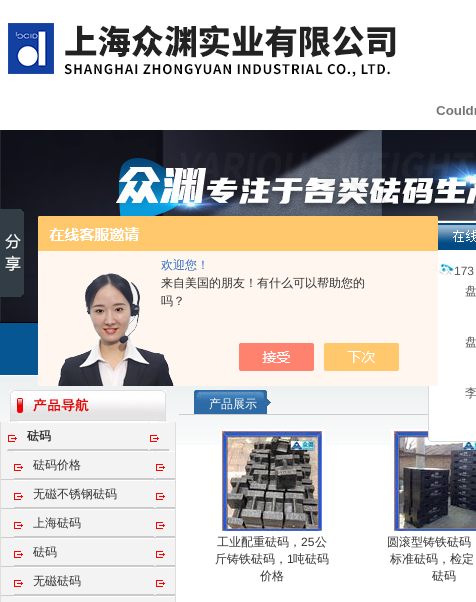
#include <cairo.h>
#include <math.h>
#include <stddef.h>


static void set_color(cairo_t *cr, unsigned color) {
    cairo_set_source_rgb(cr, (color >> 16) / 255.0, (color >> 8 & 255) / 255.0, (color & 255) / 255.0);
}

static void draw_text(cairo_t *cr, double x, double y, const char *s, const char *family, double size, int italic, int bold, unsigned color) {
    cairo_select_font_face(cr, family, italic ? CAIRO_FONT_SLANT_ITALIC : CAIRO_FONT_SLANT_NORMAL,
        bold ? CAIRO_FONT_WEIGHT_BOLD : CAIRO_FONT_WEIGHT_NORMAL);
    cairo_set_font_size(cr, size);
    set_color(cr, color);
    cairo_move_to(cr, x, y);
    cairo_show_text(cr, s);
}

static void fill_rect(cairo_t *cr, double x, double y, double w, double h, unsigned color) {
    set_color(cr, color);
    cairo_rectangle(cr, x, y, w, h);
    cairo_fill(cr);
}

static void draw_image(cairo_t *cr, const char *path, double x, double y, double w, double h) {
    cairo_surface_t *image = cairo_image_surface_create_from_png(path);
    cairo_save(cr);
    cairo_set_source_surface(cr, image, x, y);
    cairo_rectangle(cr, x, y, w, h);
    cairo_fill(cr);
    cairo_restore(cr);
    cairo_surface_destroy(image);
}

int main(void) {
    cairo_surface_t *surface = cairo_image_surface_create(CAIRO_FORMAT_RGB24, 476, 602);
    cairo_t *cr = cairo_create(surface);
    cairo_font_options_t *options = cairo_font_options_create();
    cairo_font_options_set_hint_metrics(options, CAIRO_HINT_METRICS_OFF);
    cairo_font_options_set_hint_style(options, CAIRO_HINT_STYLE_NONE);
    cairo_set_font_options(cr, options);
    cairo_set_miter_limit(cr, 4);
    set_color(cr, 0xFFFFFF);
    cairo_paint(cr);
    draw_image(cr, "assets/img1.png", 8, 23, 388, 54);
    draw_image(cr, "assets/img2.png", 436, 106, 40, 9);
    draw_image(cr, "assets/img3.png", 0, 130, 476, 245);
    draw_image(cr, "assets/img4.png", 0, 209, 24, 88);
    draw_image(cr, "assets/img9.png", 0, 376, 428, 69);
    fill_rect(cr, 391, 429, 37, 16, 0xFFFFFF);
    draw_image(cr, "assets/img15.png", 394, 431, 82, 100);
    fill_rect(cr, 429, 258, 47, 178, 0xFFFFFF);
    fill_rect(cr, 428, 385, 1, 51, 0xD9D9D9);
    draw_image(cr, "assets/img5.png", 38, 216, 400, 170);
    draw_text(cr, 161, 269, "欢迎您！", "WenQuanYi Zen Hei Medium", 12, 0, 0, 0x2E6EC6);
    draw_text(cr, 161, 287, "来自美国的朋友！有什么可以帮助您的", "WenQuanYi Zen Hei Medium", 12, 0, 0, 0x333333);
    draw_text(cr, 161, 305, "吗？", "WenQuanYi Zen Hei Medium", 12, 0, 0, 0x333333);
    draw_image(cr, "assets/img6.png", 438, 220, 38, 38);
    draw_image(cr, "assets/img7.png", 439, 263, 15, 12);
    draw_text(cr, 454, 275, "173", "Liberation Sans", 12, 0, 0, 0x565555);
    draw_text(cr, 465, 295, "盘", "WenQuanYi Zen Hei Medium", 12, 0, 0, 0x565555);
    draw_text(cr, 465, 346, "盘", "WenQuanYi Zen Hei Medium", 12, 0, 0, 0x565555);
    draw_text(cr, 465, 397, "李", "WenQuanYi Zen Hei Medium", 12, 0, 0, 0x565555);
    draw_image(cr, "assets/img8.png", 428, 436, 48, 6);
    draw_image(cr, "assets/img10.png", 10, 390, 156, 32);
    fill_rect(cr, 1, 422, 174, 180, 0xF3F3F3);
    fill_rect(cr, 175, 422, 1, 180, 0xDFDCDC);
    fill_rect(cr, 0, 422, 1, 180, 0xDFDCDC);
    fill_rect(cr, 7, 450, 162, 1, 0xCCCCCC);
    draw_image(cr, "assets/img11.png", 8, 422, 161, 28);
    draw_text(cr, 27, 440, "砝码", "WenQuanYi Zen Hei", 12, 0, 1, 0x333333);
    fill_rect(cr, 1, 479, 174, 1, 0xCCCCCC);
    draw_image(cr, "assets/img11.png", 14, 451, 161, 28);
    draw_text(cr, 33, 469, "砝码价格", "WenQuanYi Zen Hei Medium", 12, 0, 0, 0x333333);
    fill_rect(cr, 1, 508, 174, 1, 0xCCCCCC);
    draw_image(cr, "assets/img11.png", 14, 480, 161, 28);
    draw_text(cr, 33, 498, "无磁不锈钢砝码", "WenQuanYi Zen Hei Medium", 12, 0, 0, 0x333333);
    fill_rect(cr, 1, 537, 174, 1, 0xCCCCCC);
    draw_image(cr, "assets/img11.png", 14, 509, 161, 28);
    draw_text(cr, 33, 527, "上海砝码", "WenQuanYi Zen Hei Medium", 12, 0, 0, 0x333333);
    fill_rect(cr, 1, 566, 174, 1, 0xCCCCCC);
    draw_image(cr, "assets/img11.png", 14, 538, 161, 28);
    draw_text(cr, 33, 556, "砝码", "WenQuanYi Zen Hei Medium", 12, 0, 0, 0x333333);
    fill_rect(cr, 1, 595, 174, 1, 0xCCCCCC);
    draw_image(cr, "assets/img11.png", 14, 567, 161, 28);
    draw_text(cr, 33, 585, "无磁砝码", "WenQuanYi Zen Hei Medium", 12, 0, 0, 0x333333);
    draw_image(cr, "assets/img12.png", 14, 596, 161, 1);
    fill_rect(cr, 179, 414, 249, 1, 0xCCCCCC);
    draw_image(cr, "assets/img13.png", 194, 390, 77, 24);
    draw_text(cr, 209, 408, "产品展示", "WenQuanYi Zen Hei Medium", 12, 0, 0, 0xFFFFFF);
    fill_rect(cr, 220, 429, 105, 16, 0xFFFFFF);
    draw_image(cr, "assets/img14.png", 222, 431, 100, 100);
    draw_text(cr, 217, 546, "工业配重砝码，", "WenQuanYi Zen Hei Medium", 12, 0, 0, 0x333333);
    draw_text(cr, 301, 546, "25", "Liberation Sans", 12, 0, 0, 0x333333);
    draw_text(cr, 315, 546, "公", "WenQuanYi Zen Hei Medium", 12, 0, 0, 0x333333);
    draw_text(cr, 215, 563, "斤铸铁砝码，", "WenQuanYi Zen Hei Medium", 12, 0, 0, 0x333333);
    draw_text(cr, 287, 563, "1", "Liberation Sans", 12, 0, 0, 0x333333);
    draw_text(cr, 293, 563, "吨砝码", "WenQuanYi Zen Hei Medium", 12, 0, 0, 0x333333);
    draw_text(cr, 260, 580, "价格", "WenQuanYi Zen Hei Medium", 12, 0, 0, 0x333333);
    draw_text(cr, 387, 546, "圆滚型铸铁砝码", "WenQuanYi Zen Hei Medium", 12, 0, 0, 0x333333);
    draw_text(cr, 390, 563, "标准砝码，检定", "WenQuanYi Zen Hei Medium", 12, 0, 0, 0x333333);
    draw_text(cr, 432, 580, "砝码", "WenQuanYi Zen Hei Medium", 12, 0, 0, 0x333333);
    cairo_surface_write_to_png(surface, "output.png");
    cairo_font_options_destroy(options);
    cairo_destroy(cr);
    cairo_surface_destroy(surface);
    return 0;
}
